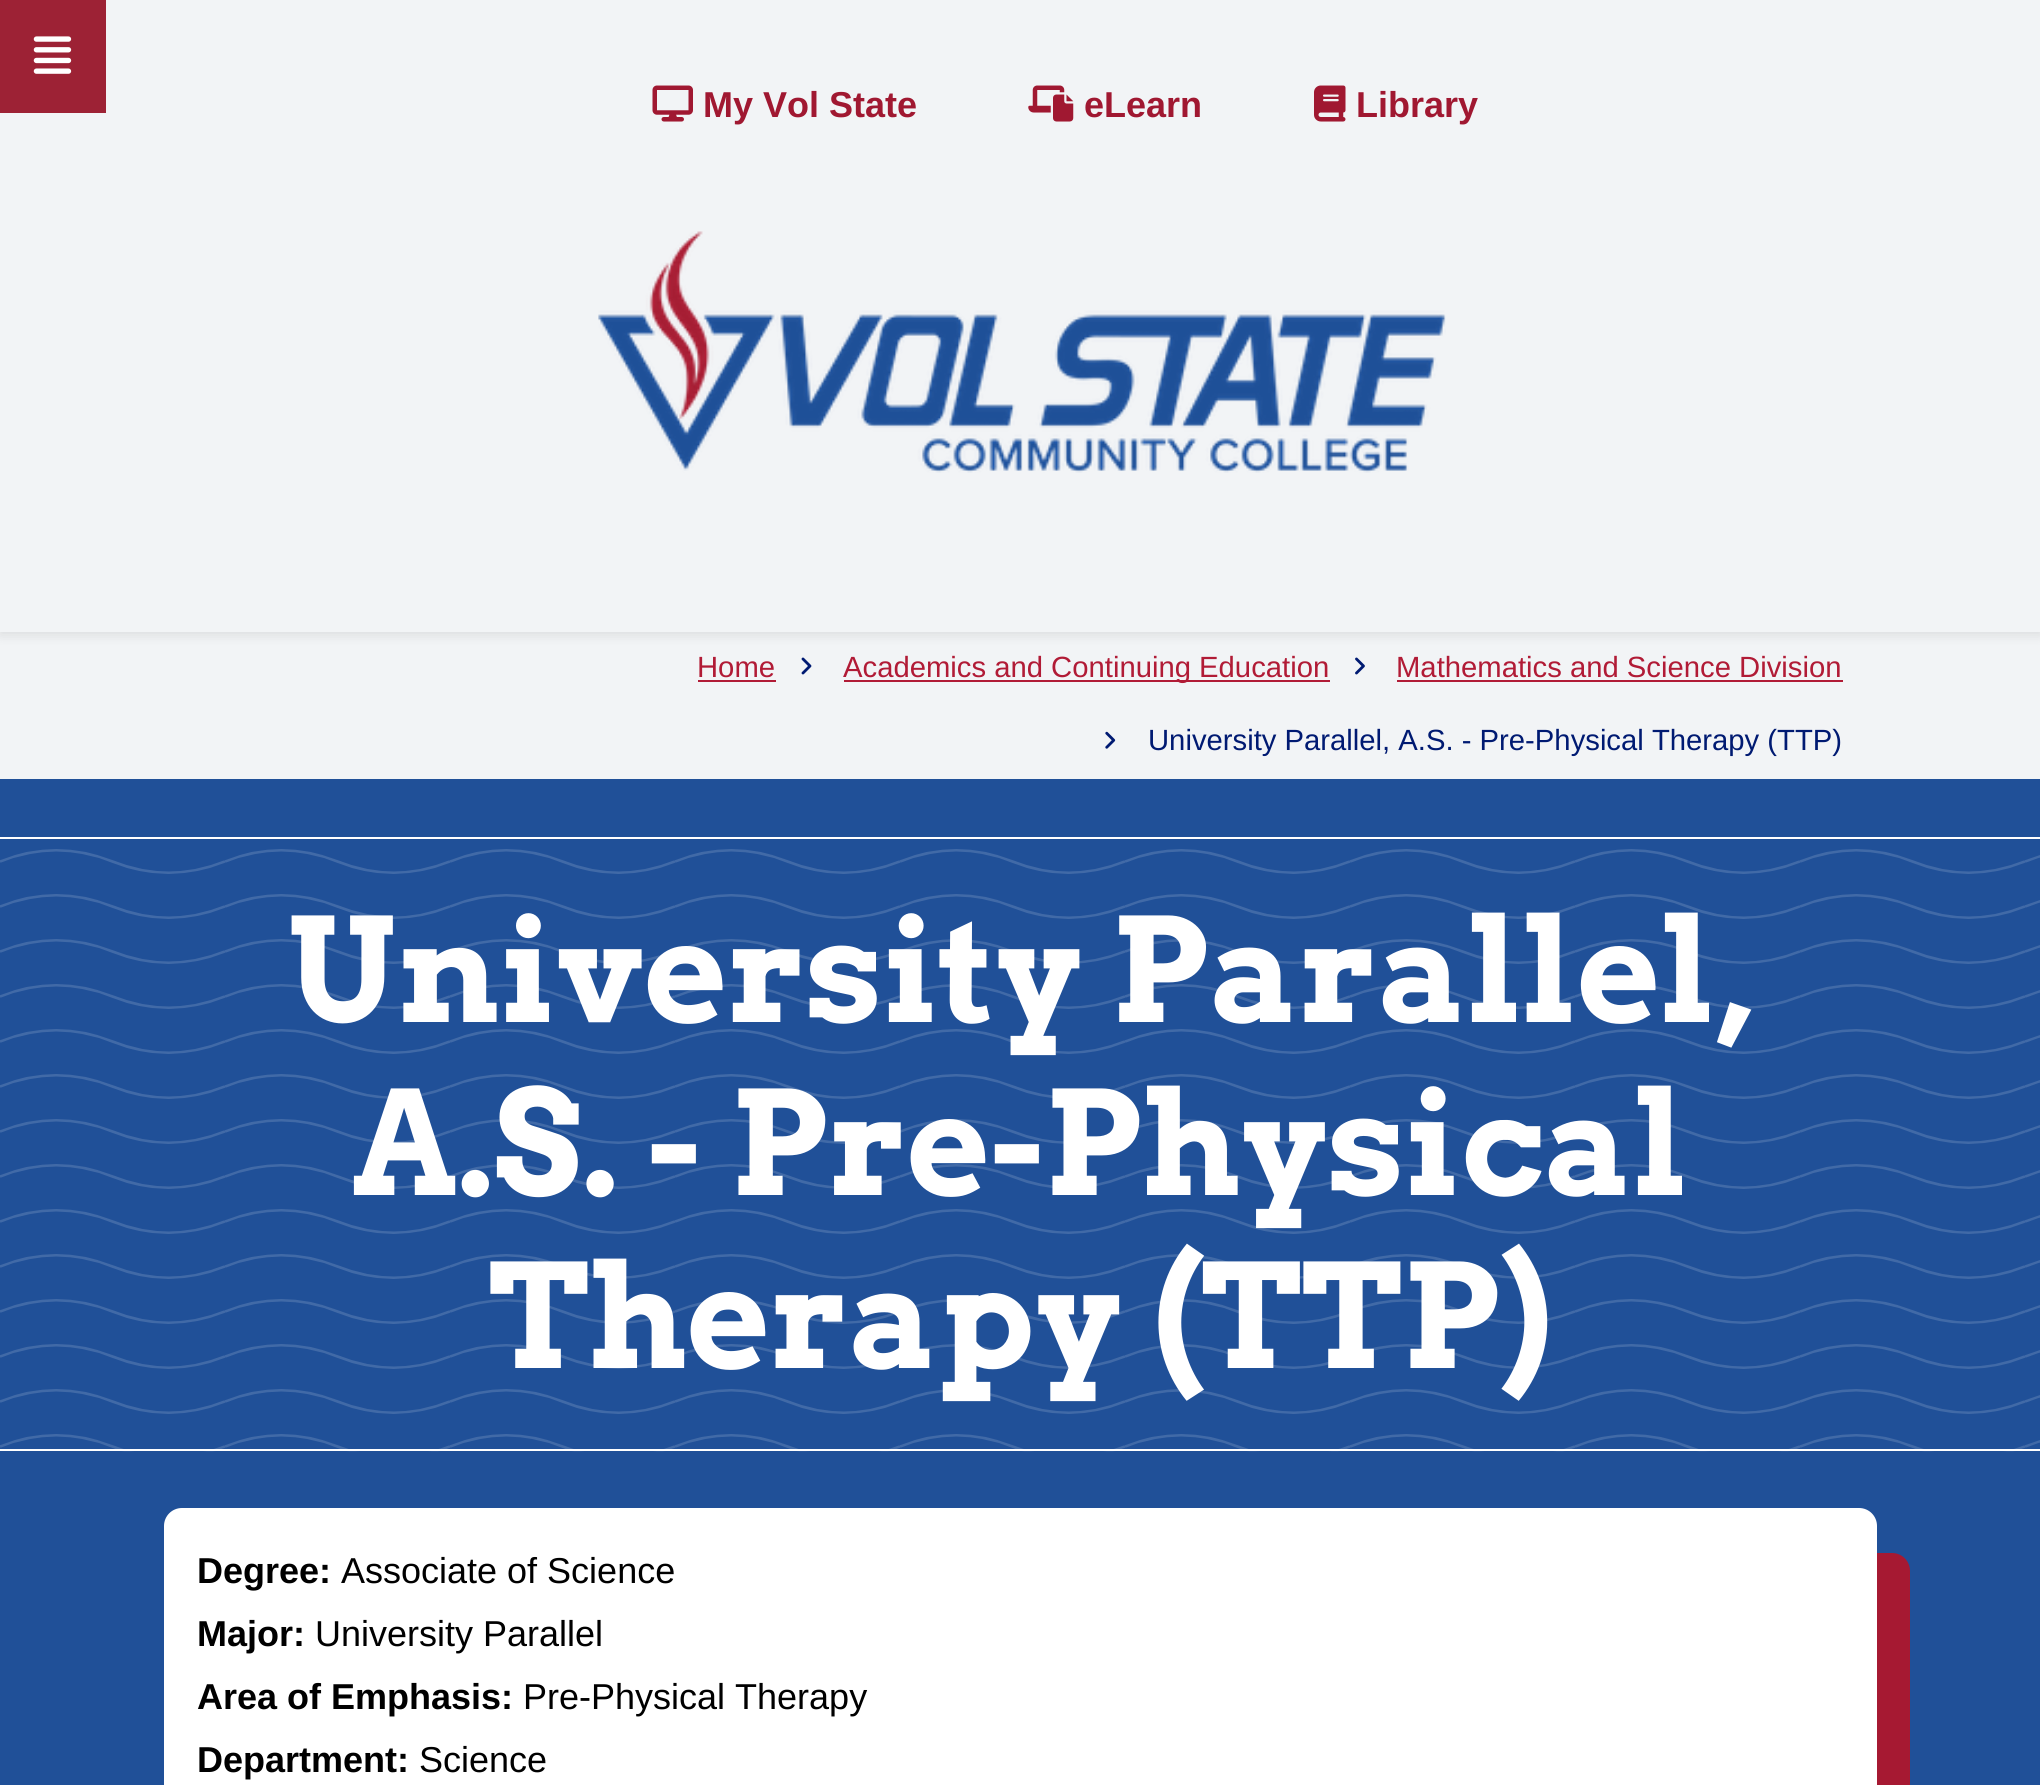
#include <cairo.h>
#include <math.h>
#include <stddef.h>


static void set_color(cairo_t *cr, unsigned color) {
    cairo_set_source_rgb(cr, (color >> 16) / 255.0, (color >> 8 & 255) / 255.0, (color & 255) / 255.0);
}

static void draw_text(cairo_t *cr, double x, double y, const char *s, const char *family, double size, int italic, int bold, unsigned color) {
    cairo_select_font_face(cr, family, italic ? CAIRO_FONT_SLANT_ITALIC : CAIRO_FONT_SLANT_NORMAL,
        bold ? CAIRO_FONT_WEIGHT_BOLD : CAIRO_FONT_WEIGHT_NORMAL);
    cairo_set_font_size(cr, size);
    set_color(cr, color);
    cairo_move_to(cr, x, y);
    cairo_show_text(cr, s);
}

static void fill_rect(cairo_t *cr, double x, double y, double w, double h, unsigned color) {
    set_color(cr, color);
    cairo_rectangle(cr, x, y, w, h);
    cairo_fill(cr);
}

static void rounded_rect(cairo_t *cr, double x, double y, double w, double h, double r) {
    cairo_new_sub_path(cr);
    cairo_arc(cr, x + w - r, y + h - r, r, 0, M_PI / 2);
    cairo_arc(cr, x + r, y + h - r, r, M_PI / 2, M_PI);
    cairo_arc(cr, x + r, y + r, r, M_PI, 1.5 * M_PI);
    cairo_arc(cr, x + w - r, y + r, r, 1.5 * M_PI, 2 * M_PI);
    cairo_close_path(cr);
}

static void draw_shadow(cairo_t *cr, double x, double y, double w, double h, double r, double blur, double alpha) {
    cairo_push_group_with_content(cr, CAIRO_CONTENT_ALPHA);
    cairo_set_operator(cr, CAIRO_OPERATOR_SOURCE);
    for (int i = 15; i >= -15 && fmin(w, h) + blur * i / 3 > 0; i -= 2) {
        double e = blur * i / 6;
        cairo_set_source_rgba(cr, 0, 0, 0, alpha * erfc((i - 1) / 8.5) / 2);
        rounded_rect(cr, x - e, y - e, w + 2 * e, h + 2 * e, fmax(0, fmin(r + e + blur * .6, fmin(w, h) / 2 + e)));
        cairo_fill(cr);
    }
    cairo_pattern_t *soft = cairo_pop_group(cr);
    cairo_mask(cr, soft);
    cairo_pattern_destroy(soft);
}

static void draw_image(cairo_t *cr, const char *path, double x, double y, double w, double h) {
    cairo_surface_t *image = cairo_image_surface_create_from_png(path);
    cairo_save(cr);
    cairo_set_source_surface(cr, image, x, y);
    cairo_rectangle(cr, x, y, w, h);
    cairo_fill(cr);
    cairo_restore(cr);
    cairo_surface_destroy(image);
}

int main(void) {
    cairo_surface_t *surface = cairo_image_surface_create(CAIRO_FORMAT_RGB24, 2040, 1785);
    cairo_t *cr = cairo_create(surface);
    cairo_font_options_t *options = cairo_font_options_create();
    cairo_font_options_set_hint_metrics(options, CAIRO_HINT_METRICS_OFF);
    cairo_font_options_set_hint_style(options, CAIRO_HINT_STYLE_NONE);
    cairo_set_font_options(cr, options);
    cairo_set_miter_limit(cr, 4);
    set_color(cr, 0x205098);
    cairo_paint(cr);
    fill_rect(cr, 0, 632, 2040, 147, 0xF2F4F6);
    set_color(cr, 0x000000);
    draw_shadow(cr, 0, 2, 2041, 633, 0, 5.5, 0.1);
    fill_rect(cr, 0, 0, 2040, 632, 0xF2F4F6);
    fill_rect(cr, 0, 0, 106, 113, 0x9D2235);
    draw_image(cr, "assets/img1.png", 33, 36, 39, 38);
    draw_image(cr, "assets/img2.png", 652, 85, 41, 37);
    draw_text(cr, 703, 117, "My Vol State", "Liberation Sans", 36, 0, 1, 0xA01831);
    draw_image(cr, "assets/img3.png", 1028, 85, 46, 37);
    draw_text(cr, 1084, 117, "eLearn", "Liberation Sans", 36, 0, 1, 0xA01831);
    draw_image(cr, "assets/img4.png", 1314, 85, 32, 37);
    draw_text(cr, 1356, 117, "Library", "Liberation Sans", 36, 0, 1, 0xA01831);
    draw_image(cr, "assets/img5.png", 598, 231, 848, 242);
    draw_text(cr, 697, 677, "Home", "Liberation Sans", 29.25, 0, 0, 0xB11B36);
    fill_rect(cr, 698, 680, 78, 2, 0xB11B36);
    draw_image(cr, "assets/img6.png", 801, 657, 11, 18);
    fill_rect(cr, 844, 680, 486, 2, 0xB11B36);
    draw_text(cr, 843, 677, "Academics and Continuing Education", "Liberation Sans", 29.25, 0, 0, 0xB11B36);
    draw_image(cr, "assets/img7.png", 1355, 657, 10, 18);
    draw_text(cr, 1396, 677, "Mathematics and Science Division", "Liberation Sans", 29.25, 0, 0, 0xB11B36);
    fill_rect(cr, 1397, 680, 446, 2, 0xB11B36);
    draw_image(cr, "assets/img8.png", 1105, 731, 11, 18);
    draw_text(cr, 1148, 750, "University Parallel, A.S. - Pre-Physical Therapy (TTP)", "Liberation Sans", 29.25, 0, 0, 0x001A72);
    draw_image(cr, "assets/img9.png", 0, 849, 2040, 603);
    fill_rect(cr, 0, 837, 2040, 2, 0xFFFFFF);
    fill_rect(cr, 0, 1449, 2040, 2, 0xFFFFFF);
    draw_text(cr, 288, 1022, "University Parallel,", "Arvo", 144, 0, 1, 0xFFFFFF);
    draw_text(cr, 352, 1195, "A.S. - Pre-Physical", "Arvo", 144, 0, 1, 0xFFFFFF);
    draw_text(cr, 489, 1368, "Therapy (TTP)", "Arvo", 144, 0, 1, 0xFFFFFF);
    set_color(cr, 0xA61932);
    cairo_new_path(cr);
    cairo_move_to(cr, 198, 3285);
    cairo_line_to(cr, 198, 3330);
    cairo_line_to(cr, 1910, 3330);
    cairo_line_to(cr, 1910, 1571);
    cairo_curve_to(cr, 1910, 1561, 1902, 1553, 1892, 1553);
    cairo_line_to(cr, 1876, 1553);
    cairo_line_to(cr, 1876, 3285);
    cairo_close_path(cr);
    cairo_fill(cr);
    set_color(cr, 0xFFFFFF);
    cairo_new_path(cr);
    cairo_move_to(cr, 182, 1508);
    cairo_line_to(cr, 1859, 1508);
    cairo_curve_to(cr, 1869, 1508, 1877, 1516, 1877, 1526);
    cairo_line_to(cr, 1877, 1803);
    cairo_line_to(cr, 164, 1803);
    cairo_line_to(cr, 164, 1526);
    cairo_curve_to(cr, 164, 1516, 172, 1508, 182, 1508);
    cairo_close_path(cr);
    cairo_fill(cr);
    draw_text(cr, 197, 1583, "Degree:", "Liberation Sans", 36, 0, 1, 0x000000);
    draw_text(cr, 341, 1583, "Associate of Science", "Liberation Sans", 36, 0, 0, 0x000000);
    draw_text(cr, 197, 1646, "Major:", "Liberation Sans", 36, 0, 1, 0x000000);
    draw_text(cr, 315, 1646, "University Parallel", "Liberation Sans", 36, 0, 0, 0x000000);
    draw_text(cr, 197, 1709, "Area of Emphasis:", "Liberation Sans", 36, 0, 1, 0x000000);
    draw_text(cr, 523, 1709, "Pre-Physical Therapy", "Liberation Sans", 36, 0, 0, 0x000000);
    draw_text(cr, 197, 1772, "Department:", "Liberation Sans", 36, 0, 1, 0x000000);
    draw_text(cr, 419, 1772, "Science", "Liberation Sans", 36, 0, 0, 0x000000);
    cairo_surface_write_to_png(surface, "output.png");
    cairo_font_options_destroy(options);
    cairo_destroy(cr);
    cairo_surface_destroy(surface);
    return 0;
}
